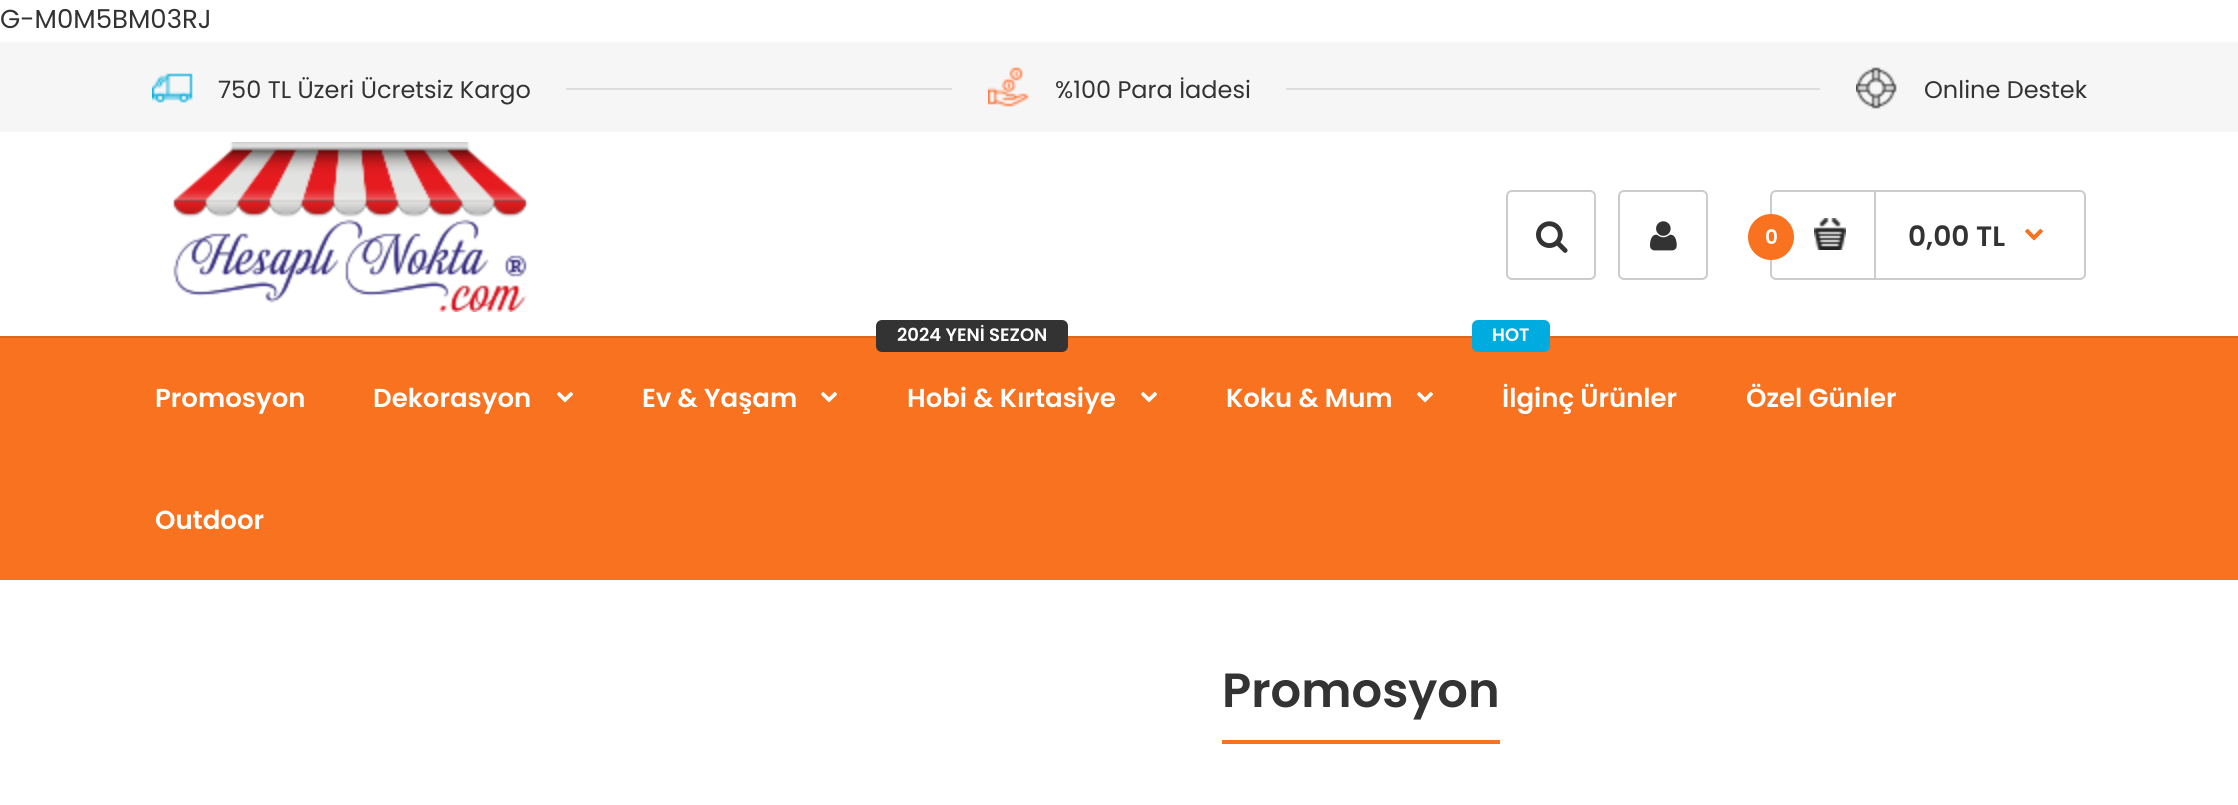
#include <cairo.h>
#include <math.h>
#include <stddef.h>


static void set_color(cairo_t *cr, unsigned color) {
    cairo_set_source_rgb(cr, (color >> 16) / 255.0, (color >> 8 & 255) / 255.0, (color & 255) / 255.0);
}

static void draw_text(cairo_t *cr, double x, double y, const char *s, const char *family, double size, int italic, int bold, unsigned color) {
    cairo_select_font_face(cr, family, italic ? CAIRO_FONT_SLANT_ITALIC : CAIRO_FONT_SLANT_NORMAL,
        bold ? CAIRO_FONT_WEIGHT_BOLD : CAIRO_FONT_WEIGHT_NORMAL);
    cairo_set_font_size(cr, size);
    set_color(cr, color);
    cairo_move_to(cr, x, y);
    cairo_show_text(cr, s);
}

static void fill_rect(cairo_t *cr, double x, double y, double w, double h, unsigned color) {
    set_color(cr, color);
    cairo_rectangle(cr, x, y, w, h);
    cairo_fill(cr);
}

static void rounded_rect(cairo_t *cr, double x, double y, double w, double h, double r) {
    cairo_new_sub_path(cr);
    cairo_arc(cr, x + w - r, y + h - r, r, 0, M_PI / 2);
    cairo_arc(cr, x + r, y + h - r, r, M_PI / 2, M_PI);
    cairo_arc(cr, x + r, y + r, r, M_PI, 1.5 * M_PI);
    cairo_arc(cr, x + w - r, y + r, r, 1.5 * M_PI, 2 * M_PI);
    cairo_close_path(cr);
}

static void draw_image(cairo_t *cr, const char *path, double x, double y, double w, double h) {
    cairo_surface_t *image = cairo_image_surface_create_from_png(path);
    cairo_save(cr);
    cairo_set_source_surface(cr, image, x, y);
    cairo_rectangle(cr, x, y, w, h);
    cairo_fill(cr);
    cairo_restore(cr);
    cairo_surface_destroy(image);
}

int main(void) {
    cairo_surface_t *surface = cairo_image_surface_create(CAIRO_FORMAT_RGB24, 2238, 805);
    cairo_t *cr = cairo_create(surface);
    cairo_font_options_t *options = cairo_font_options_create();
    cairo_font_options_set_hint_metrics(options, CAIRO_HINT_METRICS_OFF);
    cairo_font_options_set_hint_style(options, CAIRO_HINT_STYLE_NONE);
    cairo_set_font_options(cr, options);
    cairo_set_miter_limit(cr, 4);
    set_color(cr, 0xFFFFFF);
    cairo_paint(cr);
    draw_text(cr, 0, 28, "G-M0M5BM03RJ", "Poppins", 26, 0, 0, 0x333333);
    fill_rect(cr, 0, 42, 2238, 90, 0xF6F6F6);
    draw_image(cr, "assets/img1.png", 152, 73, 41, 30);
    draw_text(cr, 218, 98, "750 TL Üzeri Ücretsiz Kargo", "Poppins", 24, 0, 0, 0x333333);
    fill_rect(cr, 566, 88, 1254, 2, 0xDDDDDD);
    fill_rect(cr, 952, 88, 334, 2, 0xF6F6F6);
    draw_image(cr, "assets/img2.png", 988, 67, 41, 40);
    draw_text(cr, 1055, 98, "%100 Para İadesi", "Poppins", 24, 0, 0, 0x333333);
    draw_image(cr, "assets/img3.png", 1856, 67, 41, 42);
    draw_text(cr, 1924, 98, "Online Destek", "Poppins", 24, 0, 0, 0x333333);
    draw_image(cr, "assets/img4.png", 173, 142, 354, 170);
    rounded_rect(cr, 1507, 191, 88, 88, 5);
    set_color(cr, 0xCCCCCC);
    cairo_stroke(cr);
    draw_image(cr, "assets/img5.png", 1536, 221, 32, 32);
    rounded_rect(cr, 1619, 191, 88, 88, 5);
    cairo_stroke(cr);
    draw_image(cr, "assets/img6.png", 1650, 221, 27, 30);
    rounded_rect(cr, 1771, 191, 314, 88, 5);
    cairo_stroke(cr);
    set_color(cr, 0xF8721F);
    cairo_arc(cr, 1771, 237, 23, 0, 2 * M_PI);
    cairo_fill(cr);
    draw_text(cr, 1765, 244, "0", "Poppins SemiBold", 20, 0, 0, 0xFFFFFF);
    fill_rect(cr, 1874, 192, 2, 86, 0xCCCCCC);
    draw_image(cr, "assets/img7.png", 1814, 218, 32, 32);
    draw_text(cr, 1908, 246, "0,00 TL", "Poppins SemiBold", 28, 0, 0, 0x333333);
    draw_image(cr, "assets/img8.png", 2025, 228, 18, 13);
    fill_rect(cr, 0, 338, 2238, 242, 0xF8721F);
    fill_rect(cr, 0, 336, 2238, 2, 0xDF671C);
    draw_text(cr, 155, 407, "Promosyon", "Poppins SemiBold", 26, 0, 0, 0xFFFFFF);
    draw_text(cr, 373, 407, "Dekorasyon", "Poppins SemiBold", 26, 0, 0, 0xFFFFFF);
    draw_image(cr, "assets/img9.png", 556, 392, 18, 11);
    draw_text(cr, 642, 407, "Ev & Yaşam", "Poppins SemiBold", 26, 0, 0, 0xFFFFFF);
    draw_image(cr, "assets/img9.png", 820, 392, 18, 11);
    set_color(cr, 0x333333);
    rounded_rect(cr, 876, 320, 192, 32, 6);
    cairo_fill(cr);
    draw_text(cr, 897, 341, "2024 YENİ SEZON", "Poppins SemiBold", 18, 0, 0, 0xFFFFFF);
    draw_text(cr, 907, 407, "Hobi & Kırtasiye", "Poppins SemiBold", 26, 0, 0, 0xFFFFFF);
    draw_image(cr, "assets/img9.png", 1140, 392, 18, 11);
    draw_text(cr, 1226, 407, "Koku & Mum", "Poppins SemiBold", 26, 0, 0, 0xFFFFFF);
    draw_image(cr, "assets/img9.png", 1416, 392, 18, 11);
    set_color(cr, 0x00ABE0);
    rounded_rect(cr, 1472, 320, 78, 32, 6);
    cairo_fill(cr);
    draw_text(cr, 1492, 341, "HOT", "Poppins SemiBold", 18, 0, 0, 0xFFFFFF);
    draw_text(cr, 1502, 407, "İlginç Ürünler", "Poppins SemiBold", 26, 0, 0, 0xFFFFFF);
    draw_text(cr, 1746, 407, "Özel Günler", "Poppins SemiBold", 26, 0, 0, 0xFFFFFF);
    draw_text(cr, 155, 529, "Outdoor", "Poppins SemiBold", 26, 0, 0, 0xFFFFFF);
    fill_rect(cr, 1222, 740, 278, 4, 0xF8721F);
    draw_text(cr, 1222, 707, "Promosyon", "Poppins SemiBold", 48, 0, 0, 0x333333);
    cairo_surface_write_to_png(surface, "output.png");
    cairo_font_options_destroy(options);
    cairo_destroy(cr);
    cairo_surface_destroy(surface);
    return 0;
}
